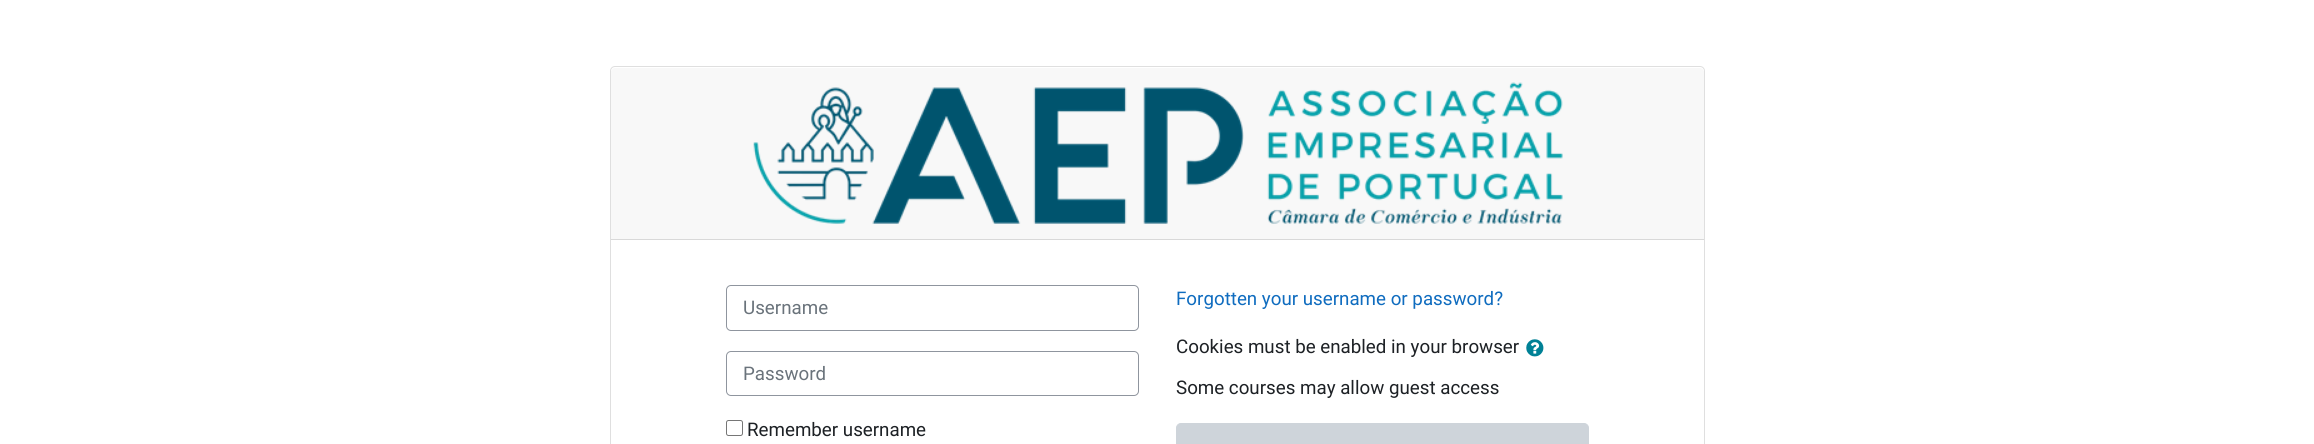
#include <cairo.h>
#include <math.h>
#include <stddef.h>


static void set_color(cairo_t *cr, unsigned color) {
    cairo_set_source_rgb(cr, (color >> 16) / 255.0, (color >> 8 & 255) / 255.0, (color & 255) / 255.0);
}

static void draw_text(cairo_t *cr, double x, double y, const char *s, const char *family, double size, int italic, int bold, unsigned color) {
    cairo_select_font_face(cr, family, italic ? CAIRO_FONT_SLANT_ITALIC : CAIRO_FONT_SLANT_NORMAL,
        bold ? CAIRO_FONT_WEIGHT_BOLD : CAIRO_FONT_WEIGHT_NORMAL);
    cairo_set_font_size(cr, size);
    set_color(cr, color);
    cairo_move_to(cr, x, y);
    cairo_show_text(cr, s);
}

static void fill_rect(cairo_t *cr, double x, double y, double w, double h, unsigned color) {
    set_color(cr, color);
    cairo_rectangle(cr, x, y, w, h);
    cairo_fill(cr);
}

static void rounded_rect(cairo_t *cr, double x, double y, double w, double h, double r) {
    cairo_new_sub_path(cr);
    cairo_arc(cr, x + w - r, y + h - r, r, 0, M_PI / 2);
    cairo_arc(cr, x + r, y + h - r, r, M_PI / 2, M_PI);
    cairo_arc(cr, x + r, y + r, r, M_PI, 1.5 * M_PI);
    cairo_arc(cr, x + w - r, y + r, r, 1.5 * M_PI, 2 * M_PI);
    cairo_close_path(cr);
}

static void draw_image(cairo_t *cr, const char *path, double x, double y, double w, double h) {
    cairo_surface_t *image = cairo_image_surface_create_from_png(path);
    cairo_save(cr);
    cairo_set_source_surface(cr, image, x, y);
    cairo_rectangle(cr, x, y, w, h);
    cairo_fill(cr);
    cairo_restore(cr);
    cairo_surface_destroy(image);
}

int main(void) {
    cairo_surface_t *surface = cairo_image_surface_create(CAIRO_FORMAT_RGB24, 2314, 444);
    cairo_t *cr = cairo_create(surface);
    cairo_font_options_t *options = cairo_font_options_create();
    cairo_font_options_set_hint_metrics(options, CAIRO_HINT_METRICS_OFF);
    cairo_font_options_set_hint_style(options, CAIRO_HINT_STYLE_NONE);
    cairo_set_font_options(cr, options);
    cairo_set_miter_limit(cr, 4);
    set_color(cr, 0xFFFFFF);
    cairo_paint(cr);
    rounded_rect(cr, 610.5, 66.5, 1094, 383, 4.5);
    set_color(cr, 0xDFDFDF);
    cairo_set_line_width(cr, 1);
    cairo_stroke(cr);
    set_color(cr, 0xF8F8F8);
    cairo_new_path(cr);
    cairo_move_to(cr, 615, 68);
    cairo_line_to(cr, 1700, 68);
    cairo_curve_to(cr, 1702, 68, 1704, 70, 1704, 72);
    cairo_line_to(cr, 1704, 240);
    cairo_line_to(cr, 611, 240);
    cairo_line_to(cr, 611, 72);
    cairo_curve_to(cr, 611, 70, 613, 68, 615, 68);
    cairo_close_path(cr);
    cairo_fill(cr);
    fill_rect(cr, 611, 239, 1093, 1, 0xD9D9D9);
    draw_image(cr, "assets/img1.png", 753, 82, 810, 142);
    rounded_rect(cr, 726.5, 285.5, 412, 45, 4.5);
    set_color(cr, 0x8F959E);
    cairo_stroke(cr);
    draw_text(cr, 743, 314, "Username", "Roboto", 18.75, 0, 0, 0x6A737B);
    rounded_rect(cr, 726.5, 351.5, 412, 44, 4.5);
    set_color(cr, 0x8F959E);
    cairo_stroke(cr);
    draw_text(cr, 743, 380, "Password", "Roboto", 18.75, 0, 0, 0x6A737B);
    rounded_rect(cr, 726.5, 420.5, 16, 15, 2);
    set_color(cr, 0x767676);
    cairo_stroke(cr);
    draw_text(cr, 747, 436, "Remember username", "Roboto", 18.75, 0, 0, 0x1D2125);
    draw_text(cr, 1176, 305, "Forgotten your username or password?", "Roboto", 18.75, 0, 0, 0x0F6CBF);
    draw_text(cr, 1176, 353, "Cookies must be enabled in your browser", "Roboto", 18.75, 0, 0, 0x1D2125);
    draw_image(cr, "assets/img2.png", 1526, 339, 18, 18);
    draw_text(cr, 1176, 394, "Some courses may allow guest access", "Roboto", 18.75, 0, 0, 0x1D2125);
    set_color(cr, 0xCED4DA);
    rounded_rect(cr, 1176.5, 423.5, 412, 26, 4.5);
    cairo_fill_preserve(cr);
    cairo_stroke(cr);
    cairo_surface_write_to_png(surface, "output.png");
    cairo_font_options_destroy(options);
    cairo_destroy(cr);
    cairo_surface_destroy(surface);
    return 0;
}
